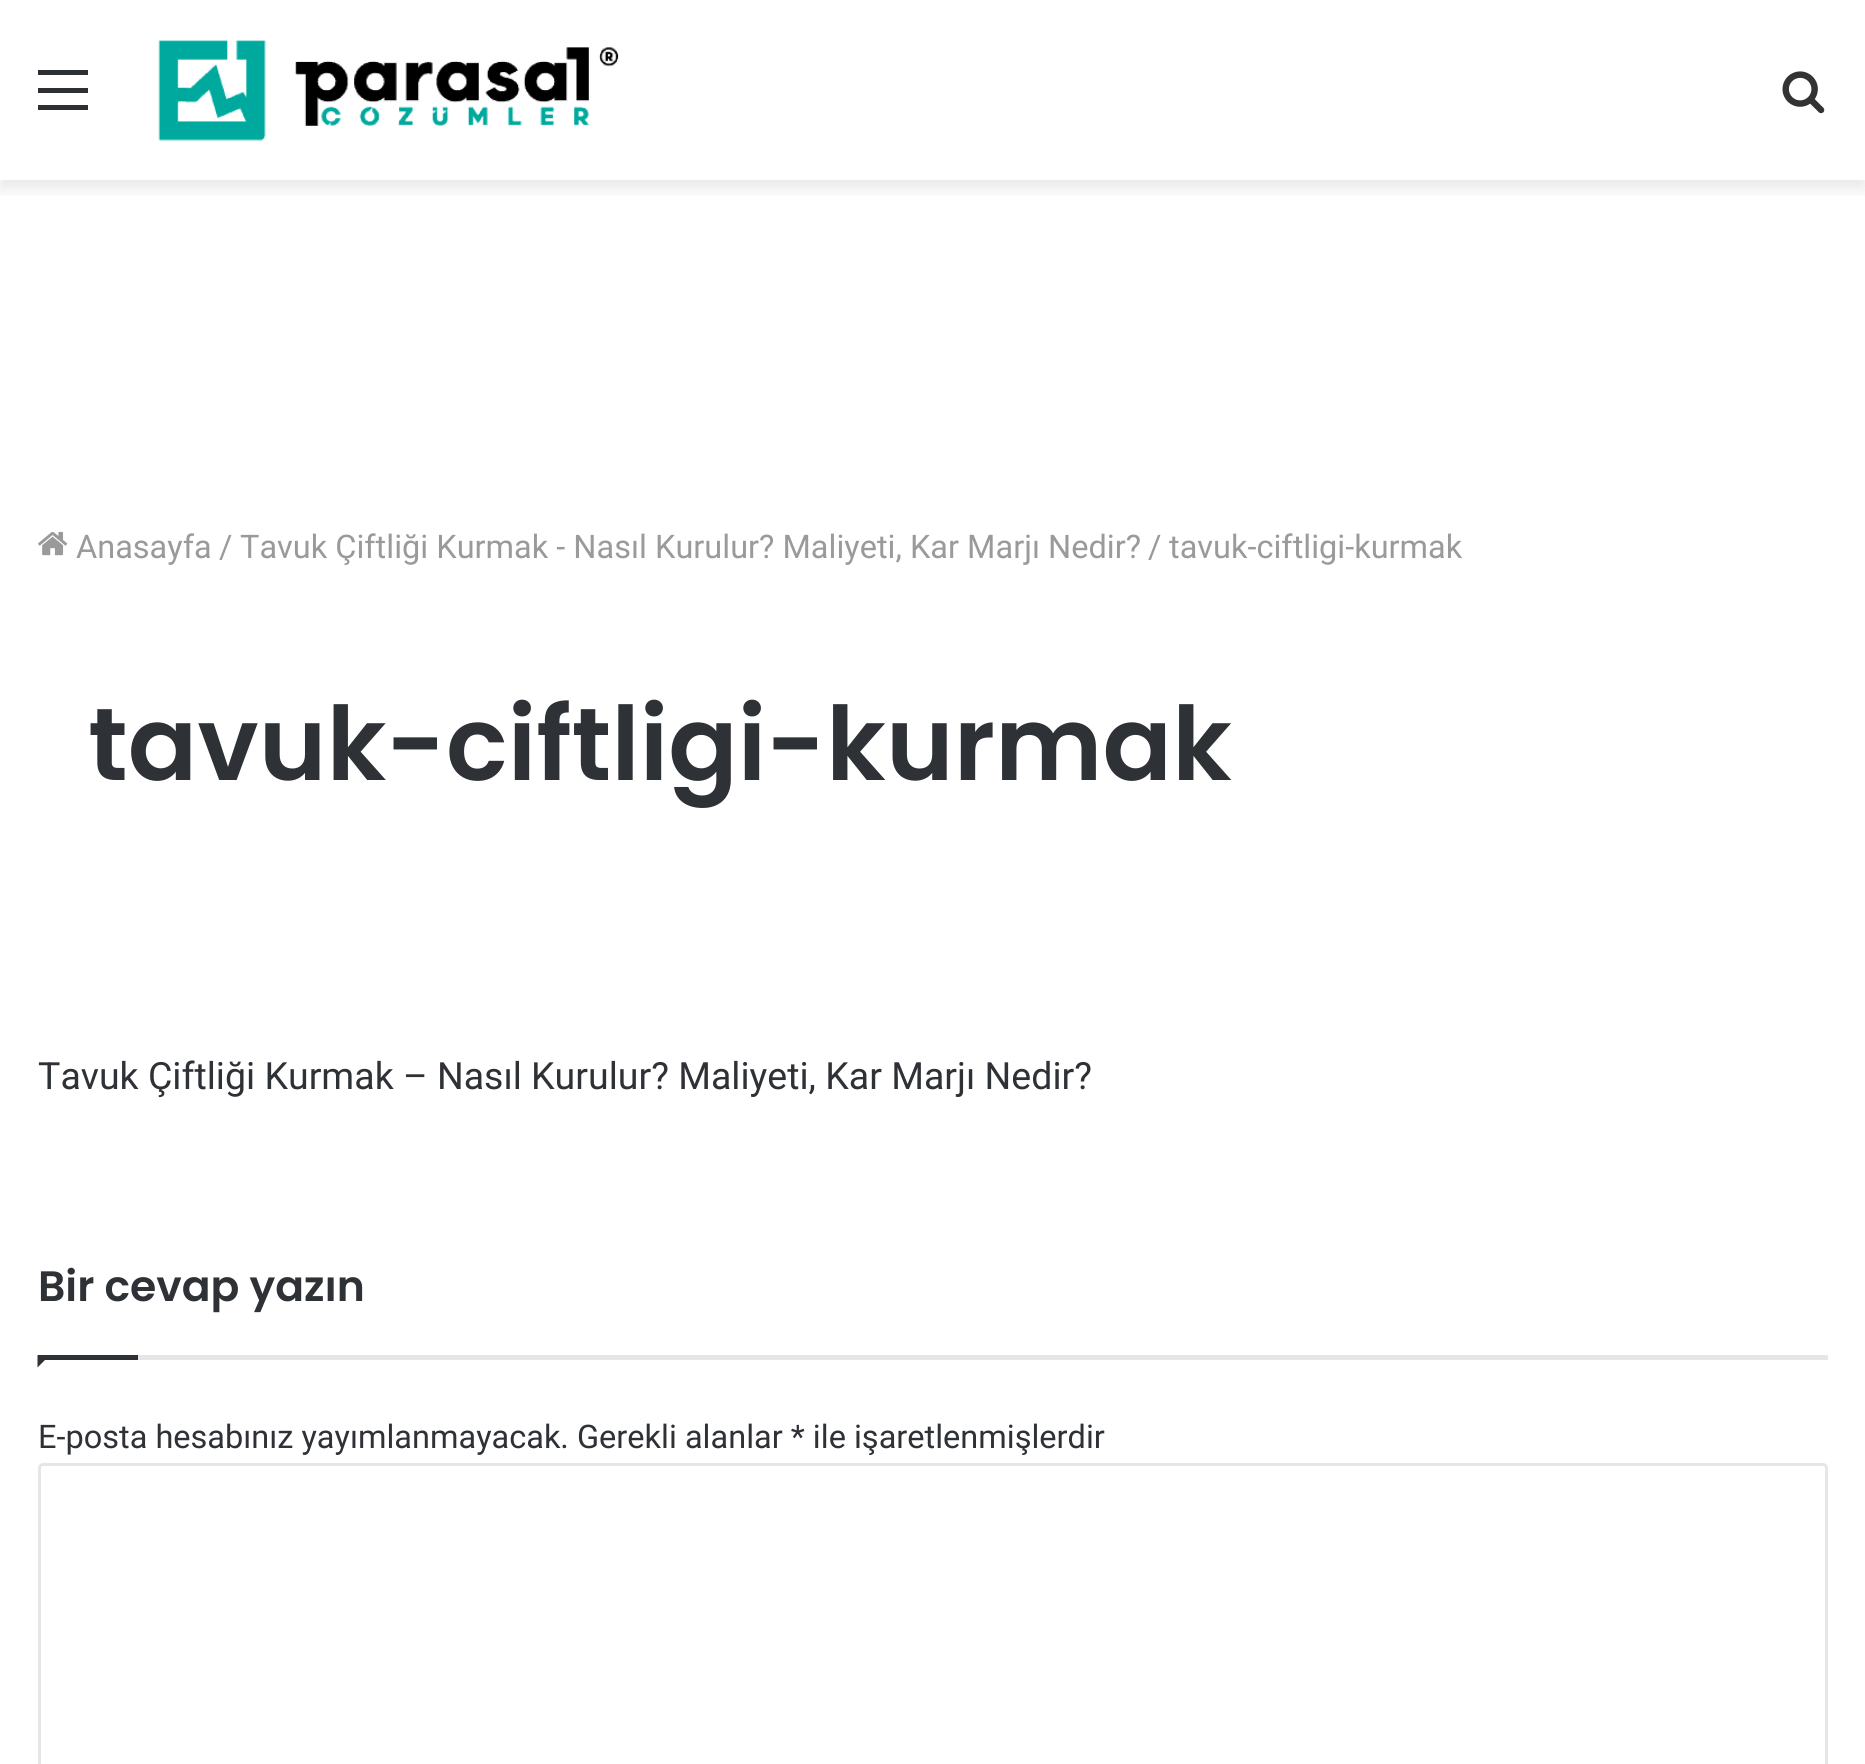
#include <cairo.h>
#include <math.h>
#include <stddef.h>


static void set_color(cairo_t *cr, unsigned color) {
    cairo_set_source_rgb(cr, (color >> 16) / 255.0, (color >> 8 & 255) / 255.0, (color & 255) / 255.0);
}

static void draw_text(cairo_t *cr, double x, double y, const char *s, const char *family, double size, int italic, int bold, unsigned color) {
    cairo_select_font_face(cr, family, italic ? CAIRO_FONT_SLANT_ITALIC : CAIRO_FONT_SLANT_NORMAL,
        bold ? CAIRO_FONT_WEIGHT_BOLD : CAIRO_FONT_WEIGHT_NORMAL);
    cairo_set_font_size(cr, size);
    set_color(cr, color);
    cairo_move_to(cr, x, y);
    cairo_show_text(cr, s);
}

static void fill_rect(cairo_t *cr, double x, double y, double w, double h, unsigned color) {
    set_color(cr, color);
    cairo_rectangle(cr, x, y, w, h);
    cairo_fill(cr);
}

static void rounded_rect(cairo_t *cr, double x, double y, double w, double h, double r) {
    cairo_new_sub_path(cr);
    cairo_arc(cr, x + w - r, y + h - r, r, 0, M_PI / 2);
    cairo_arc(cr, x + r, y + h - r, r, M_PI / 2, M_PI);
    cairo_arc(cr, x + r, y + r, r, M_PI, 1.5 * M_PI);
    cairo_arc(cr, x + w - r, y + r, r, 1.5 * M_PI, 2 * M_PI);
    cairo_close_path(cr);
}

static void draw_shadow(cairo_t *cr, double x, double y, double w, double h, double r, double blur, double alpha) {
    cairo_push_group_with_content(cr, CAIRO_CONTENT_ALPHA);
    cairo_set_operator(cr, CAIRO_OPERATOR_SOURCE);
    for (int i = 15; i >= -15 && fmin(w, h) + blur * i / 3 > 0; i -= 2) {
        double e = blur * i / 6;
        cairo_set_source_rgba(cr, 0, 0, 0, alpha * erfc((i - 1) / 8.5) / 2);
        rounded_rect(cr, x - e, y - e, w + 2 * e, h + 2 * e, fmax(0, fmin(r + e + blur * .6, fmin(w, h) / 2 + e)));
        cairo_fill(cr);
    }
    cairo_pattern_t *soft = cairo_pop_group(cr);
    cairo_mask(cr, soft);
    cairo_pattern_destroy(soft);
}

static void draw_image(cairo_t *cr, const char *path, double x, double y, double w, double h) {
    cairo_surface_t *image = cairo_image_surface_create_from_png(path);
    cairo_save(cr);
    cairo_set_source_surface(cr, image, x, y);
    cairo_rectangle(cr, x, y, w, h);
    cairo_fill(cr);
    cairo_restore(cr);
    cairo_surface_destroy(image);
}

int main(void) {
    cairo_surface_t *surface = cairo_image_surface_create(CAIRO_FORMAT_RGB24, 1865, 1764);
    cairo_t *cr = cairo_create(surface);
    cairo_font_options_t *options = cairo_font_options_create();
    cairo_font_options_set_hint_metrics(options, CAIRO_HINT_METRICS_OFF);
    cairo_font_options_set_hint_style(options, CAIRO_HINT_STYLE_NONE);
    cairo_set_font_options(cr, options);
    cairo_set_miter_limit(cr, 4);
    set_color(cr, 0xFFFFFF);
    cairo_paint(cr);
    cairo_save(cr);
    cairo_rectangle(cr, 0, 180, 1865, 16);
    cairo_clip(cr);
    set_color(cr, 0x000000);
    draw_shadow(cr, 0, 8, 1865, 180, 0, 9, 0.1);
    cairo_restore(cr);
    fill_rect(cr, 38, 88, 50, 5, 0x2C2F34);
    fill_rect(cr, 38, 70, 50, 5, 0x2C2F34);
    fill_rect(cr, 38, 105, 50, 5, 0x2C2F34);
    draw_image(cr, "assets/img1.png", 158, 40, 461, 101);
    draw_image(cr, "assets/img2.png", 1782, 71, 43, 43);
    draw_image(cr, "assets/img3.png", 38, 531, 30, 25);
    draw_text(cr, 76, 558, "Anasayfa", "Roboto", 32.5, 0, 0, 0x9A9A9A);
    draw_text(cr, 219, 558, "/", "Roboto", 32.5, 0, 0, 0x9A9A9A);
    draw_text(cr, 240, 558, "Tavuk Çiftliği Kurmak - Nasıl Kurulur? Maliyeti, Kar Marjı Nedir?", "Roboto", 32.5, 0, 0, 0x9A9A9A);
    draw_text(cr, 1148, 558, "/", "Roboto", 32.5, 0, 0, 0x9A9A9A);
    draw_text(cr, 1169, 558, "tavuk-ciftligi-kurmak", "Roboto", 32.5, 0, 0, 0x9A9A9A);
    draw_text(cr, 88, 780, "tavuk-ciftligi-kurmak", "Poppins SemiBold", 102.5, 0, 0, 0x2E3136);
    draw_text(cr, 38, 1089, "Tavuk Çiftliği Kurmak – Nasıl Kurulur? Maliyeti, Kar Marjı Nedir?", "Roboto", 37.5, 0, 0, 0x2E3136);
    fill_rect(cr, 138, 1355, 1690, 5, 0xE6E6E6);
    draw_text(cr, 38, 1301, "Bir cevap yazın", "Poppins SemiBold", 42.5, 0, 0, 0x2E3136);
    cairo_new_path(cr);
    cairo_move_to(cr, 37.5, 1355);
    cairo_line_to(cr, 50, 1355);
    cairo_line_to(cr, 37.5, 1367.5);
    cairo_close_path(cr);
    cairo_fill(cr);
    fill_rect(cr, 38, 1355, 100, 5, 0x2E3136);
    draw_text(cr, 38, 1448, "E-posta hesabınız yayımlanmayacak. Gerekli alanlar * ile işaretlenmişlerdir", "Roboto", 32.5, 0, 0, 0x2E3136);
    rounded_rect(cr, 39.5, 1464.5, 1787, 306, 3.5);
    set_color(cr, 0xE6E6E6);
    cairo_set_line_width(cr, 3);
    cairo_stroke(cr);
    cairo_surface_write_to_png(surface, "output.png");
    cairo_font_options_destroy(options);
    cairo_destroy(cr);
    cairo_surface_destroy(surface);
    return 0;
}
